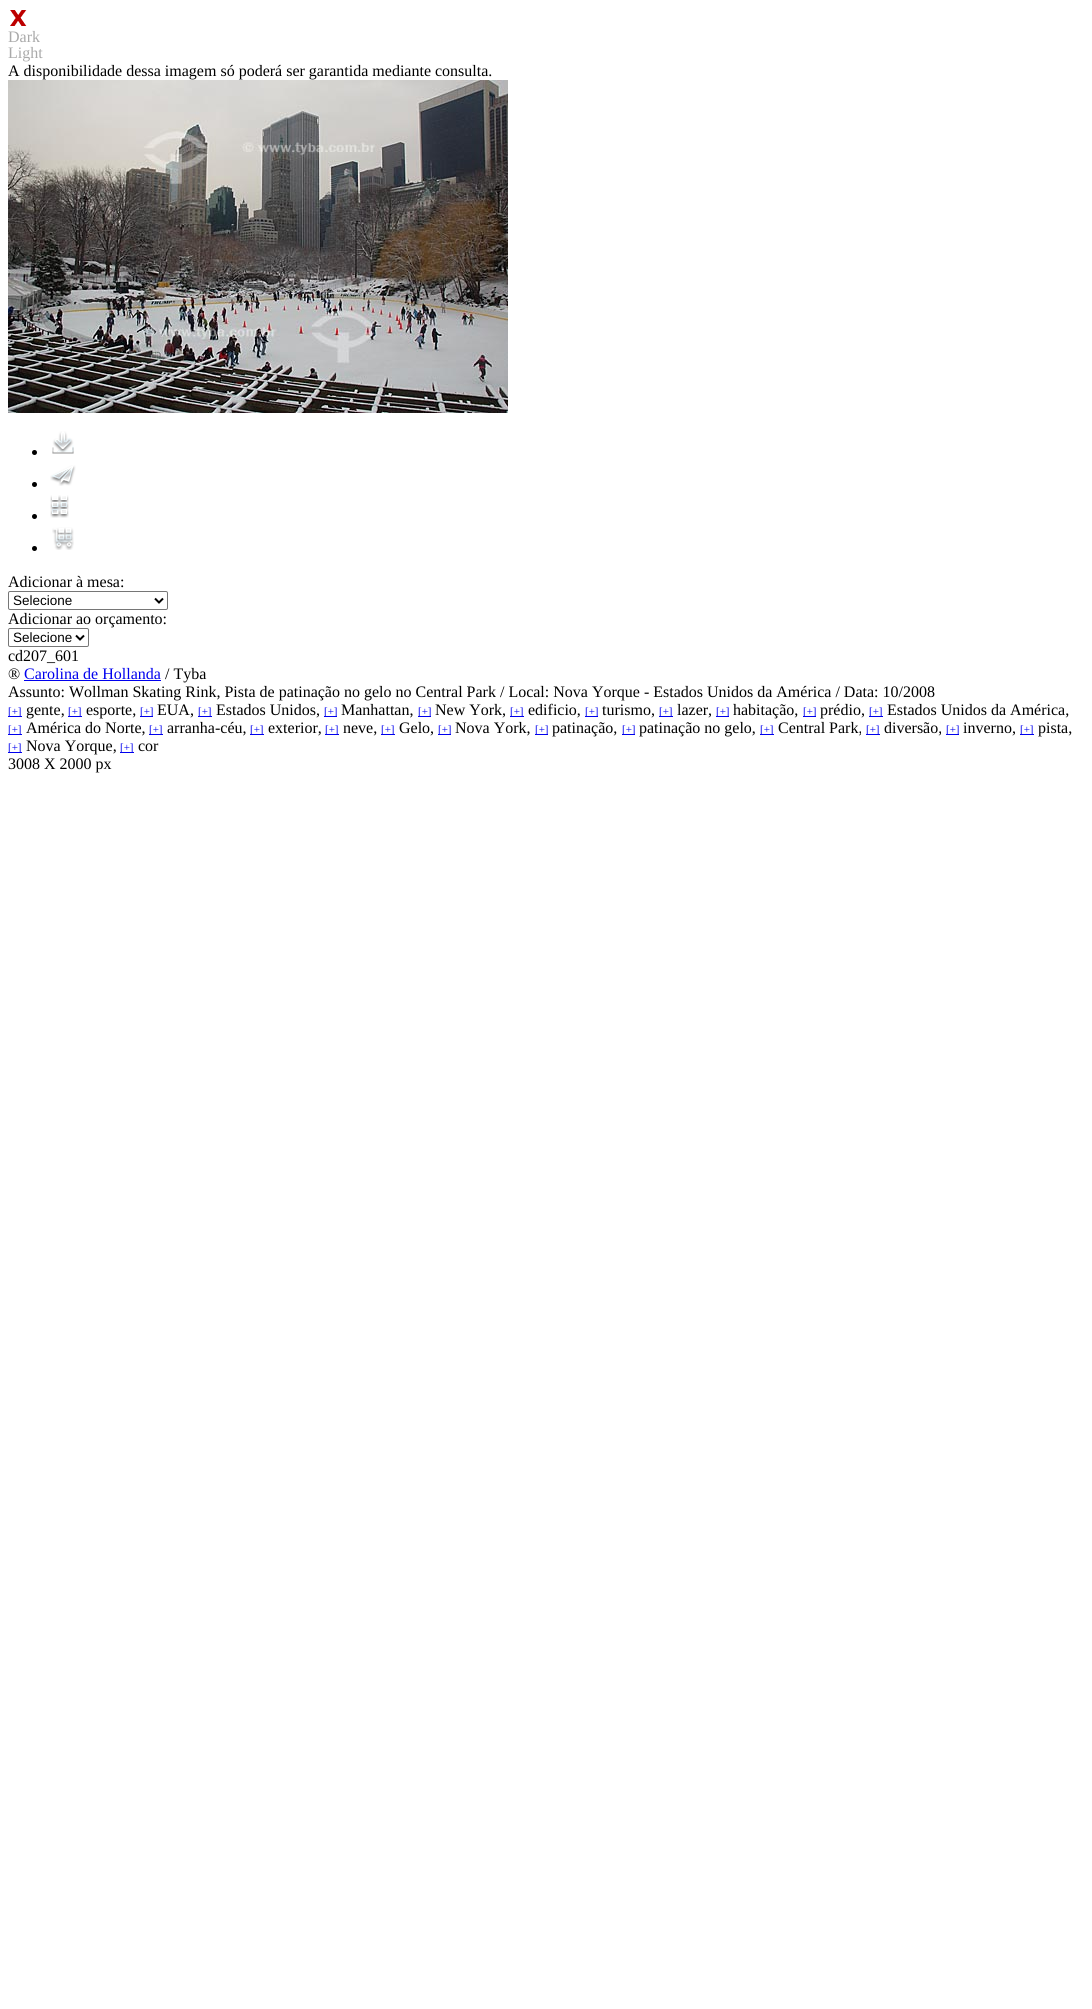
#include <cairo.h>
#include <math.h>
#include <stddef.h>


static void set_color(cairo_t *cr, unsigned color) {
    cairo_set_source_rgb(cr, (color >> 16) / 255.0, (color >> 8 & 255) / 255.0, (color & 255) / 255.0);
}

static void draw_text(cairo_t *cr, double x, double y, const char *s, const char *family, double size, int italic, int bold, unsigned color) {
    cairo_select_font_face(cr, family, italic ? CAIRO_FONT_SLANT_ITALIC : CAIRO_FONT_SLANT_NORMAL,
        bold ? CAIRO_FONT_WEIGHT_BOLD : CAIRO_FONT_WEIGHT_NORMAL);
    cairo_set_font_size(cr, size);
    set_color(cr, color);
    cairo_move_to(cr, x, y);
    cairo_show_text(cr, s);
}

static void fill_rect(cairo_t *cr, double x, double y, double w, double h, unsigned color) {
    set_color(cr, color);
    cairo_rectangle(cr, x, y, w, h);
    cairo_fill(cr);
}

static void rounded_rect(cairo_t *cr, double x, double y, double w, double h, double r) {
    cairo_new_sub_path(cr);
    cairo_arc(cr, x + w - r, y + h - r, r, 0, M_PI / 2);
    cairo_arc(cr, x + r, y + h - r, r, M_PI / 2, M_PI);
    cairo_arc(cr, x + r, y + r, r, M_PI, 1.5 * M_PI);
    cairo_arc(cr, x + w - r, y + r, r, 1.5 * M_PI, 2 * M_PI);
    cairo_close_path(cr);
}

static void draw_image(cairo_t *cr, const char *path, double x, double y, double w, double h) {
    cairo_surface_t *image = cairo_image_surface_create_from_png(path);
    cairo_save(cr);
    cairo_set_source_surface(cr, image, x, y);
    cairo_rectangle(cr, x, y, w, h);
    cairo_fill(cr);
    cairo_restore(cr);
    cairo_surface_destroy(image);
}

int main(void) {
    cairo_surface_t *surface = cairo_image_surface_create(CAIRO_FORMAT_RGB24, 1092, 2009);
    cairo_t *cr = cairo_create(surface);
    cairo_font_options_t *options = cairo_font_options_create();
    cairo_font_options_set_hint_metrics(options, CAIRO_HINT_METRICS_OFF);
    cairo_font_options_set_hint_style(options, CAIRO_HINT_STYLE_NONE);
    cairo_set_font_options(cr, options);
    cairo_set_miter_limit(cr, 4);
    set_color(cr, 0xFFFFFF);
    cairo_paint(cr);
    draw_image(cr, "assets/img1.png", 10, 10, 17, 16);
    draw_text(cr, 8, 42, "Dark", "Liberation Serif", 16, 0, 0, 0xAAAAAA);
    draw_text(cr, 8, 58, "Light", "Liberation Serif", 16, 0, 0, 0xAAAAAA);
    draw_text(cr, 8, 76, "A disponibilidade dessa imagem só poderá ser garantida mediante consulta.", "Liberation Serif", 16, 0, 0, 0x000000);
    draw_image(cr, "assets/img2.png", 8, 80, 500, 333);
    cairo_arc(cr, 34.5, 452.5, 2.5, 0, 2 * M_PI);
    cairo_fill(cr);
    draw_image(cr, "assets/img3.png", 52, 431, 22, 23);
    cairo_arc(cr, 34.5, 484.5, 2.5, 0, 2 * M_PI);
    cairo_fill(cr);
    draw_image(cr, "assets/img4.png", 50, 465, 26, 21);
    cairo_arc(cr, 34.5, 516.5, 2.5, 0, 2 * M_PI);
    cairo_fill(cr);
    draw_image(cr, "assets/img5.png", 50, 495, 19, 23);
    cairo_arc(cr, 34.5, 548.5, 2.5, 0, 2 * M_PI);
    cairo_fill(cr);
    draw_image(cr, "assets/img6.png", 52, 527, 22, 23);
    draw_text(cr, 8, 587, "Adicionar à mesa:", "Liberation Serif", 16, 0, 0, 0x000000);
    rounded_rect(cr, 8.5, 591.5, 159, 18, 1.5);
    set_color(cr, 0x767676);
    cairo_set_line_width(cr, 1);
    cairo_stroke(cr);
    cairo_new_path(cr);
    cairo_move_to(cr, 155, 598.5);
    cairo_line_to(cr, 159, 602.5);
    cairo_line_to(cr, 163, 598.5);
    set_color(cr, 0x000000);
    cairo_set_line_width(cr, 2);
    cairo_stroke(cr);
    draw_text(cr, 13, 605, "Selecione", "Liberation Sans", 13.5, 0, 0, 0x000000);
    draw_text(cr, 8, 624, "Adicionar ao orçamento:", "Liberation Serif", 16, 0, 0, 0x000000);
    rounded_rect(cr, 8.5, 628.5, 80, 18, 1.5);
    set_color(cr, 0x767676);
    cairo_set_line_width(cr, 1);
    cairo_stroke(cr);
    cairo_new_path(cr);
    cairo_move_to(cr, 76, 635.5);
    cairo_line_to(cr, 80, 639.5);
    cairo_line_to(cr, 84, 635.5);
    set_color(cr, 0x000000);
    cairo_set_line_width(cr, 2);
    cairo_stroke(cr);
    draw_text(cr, 13, 642, "Selecione", "Liberation Sans", 13.5, 0, 0, 0x000000);
    draw_text(cr, 8, 661, "cd207_601", "Liberation Serif", 16, 0, 0, 0x000000);
    draw_text(cr, 8, 679, "®", "Liberation Serif", 16, 0, 0, 0x000000);
    draw_text(cr, 24, 679, "Carolina de Hollanda", "Liberation Serif", 16, 0, 0, 0x0000EE);
    fill_rect(cr, 24, 680, 137, 1, 0x0000EE);
    draw_text(cr, 165, 679, "/ Tyba", "Liberation Serif", 16, 0, 0, 0x000000);
    draw_text(cr, 8, 697, "Assunto: Wollman Skating Rink, Pista de patinação no gelo no Central Park / Local: Nova Yorque - Estados Unidos da América / Data: 10/2008", "Liberation Serif", 16, 0, 0, 0x000000);
    fill_rect(cr, 8, 716, 14, 1, 0x0000EE);
    draw_text(cr, 8, 715, "[+]", "Liberation Serif", 11, 0, 0, 0x0000EE);
    draw_text(cr, 26, 715, "gente,", "Liberation Serif", 16, 0, 0, 0x000000);
    fill_rect(cr, 68, 716, 14, 1, 0x0000EE);
    draw_text(cr, 68, 715, "[+]", "Liberation Serif", 11, 0, 0, 0x0000EE);
    draw_text(cr, 86, 715, "esporte,", "Liberation Serif", 16, 0, 0, 0x000000);
    fill_rect(cr, 140, 716, 13, 1, 0x0000EE);
    draw_text(cr, 140, 715, "[+]", "Liberation Serif", 11, 0, 0, 0x0000EE);
    draw_text(cr, 157, 715, "EUA,", "Liberation Serif", 16, 0, 0, 0x000000);
    fill_rect(cr, 198, 716, 14, 1, 0x0000EE);
    draw_text(cr, 198, 715, "[+]", "Liberation Serif", 11, 0, 0, 0x0000EE);
    draw_text(cr, 216, 715, "Estados Unidos,", "Liberation Serif", 16, 0, 0, 0x000000);
    fill_rect(cr, 324, 716, 13, 1, 0x0000EE);
    draw_text(cr, 324, 715, "[+]", "Liberation Serif", 11, 0, 0, 0x0000EE);
    draw_text(cr, 341, 715, "Manhattan,", "Liberation Serif", 16, 0, 0, 0x000000);
    fill_rect(cr, 418, 716, 13, 1, 0x0000EE);
    draw_text(cr, 418, 715, "[+]", "Liberation Serif", 11, 0, 0, 0x0000EE);
    draw_text(cr, 435, 715, "New York,", "Liberation Serif", 16, 0, 0, 0x000000);
    fill_rect(cr, 510, 716, 14, 1, 0x0000EE);
    draw_text(cr, 510, 715, "[+]", "Liberation Serif", 11, 0, 0, 0x0000EE);
    draw_text(cr, 528, 715, "edificio,", "Liberation Serif", 16, 0, 0, 0x000000);
    fill_rect(cr, 585, 716, 13, 1, 0x0000EE);
    draw_text(cr, 585, 715, "[+]", "Liberation Serif", 11, 0, 0, 0x0000EE);
    draw_text(cr, 602, 715, "turismo,", "Liberation Serif", 16, 0, 0, 0x000000);
    fill_rect(cr, 659, 716, 14, 1, 0x0000EE);
    draw_text(cr, 659, 715, "[+]", "Liberation Serif", 11, 0, 0, 0x0000EE);
    draw_text(cr, 677, 715, "lazer,", "Liberation Serif", 16, 0, 0, 0x000000);
    fill_rect(cr, 716, 716, 13, 1, 0x0000EE);
    draw_text(cr, 716, 715, "[+]", "Liberation Serif", 11, 0, 0, 0x0000EE);
    draw_text(cr, 733, 715, "habitação,", "Liberation Serif", 16, 0, 0, 0x000000);
    fill_rect(cr, 803, 716, 13, 1, 0x0000EE);
    draw_text(cr, 803, 715, "[+]", "Liberation Serif", 11, 0, 0, 0x0000EE);
    draw_text(cr, 820, 715, "prédio,", "Liberation Serif", 16, 0, 0, 0x000000);
    fill_rect(cr, 869, 716, 14, 1, 0x0000EE);
    draw_text(cr, 869, 715, "[+]", "Liberation Serif", 11, 0, 0, 0x0000EE);
    draw_text(cr, 887, 715, "Estados Unidos da América,", "Liberation Serif", 16, 0, 0, 0x000000);
    fill_rect(cr, 8, 734, 14, 1, 0x0000EE);
    draw_text(cr, 8, 733, "[+]", "Liberation Serif", 11, 0, 0, 0x0000EE);
    draw_text(cr, 26, 733, "América do Norte,", "Liberation Serif", 16, 0, 0, 0x000000);
    fill_rect(cr, 149, 734, 14, 1, 0x0000EE);
    draw_text(cr, 149, 733, "[+]", "Liberation Serif", 11, 0, 0, 0x0000EE);
    draw_text(cr, 167, 733, "arranha-céu,", "Liberation Serif", 16, 0, 0, 0x000000);
    fill_rect(cr, 250, 734, 14, 1, 0x0000EE);
    draw_text(cr, 250, 733, "[+]", "Liberation Serif", 11, 0, 0, 0x0000EE);
    draw_text(cr, 268, 733, "exterior,", "Liberation Serif", 16, 0, 0, 0x000000);
    fill_rect(cr, 325, 734, 14, 1, 0x0000EE);
    draw_text(cr, 325, 733, "[+]", "Liberation Serif", 11, 0, 0, 0x0000EE);
    draw_text(cr, 343, 733, "neve,", "Liberation Serif", 16, 0, 0, 0x000000);
    fill_rect(cr, 381, 734, 14, 1, 0x0000EE);
    draw_text(cr, 381, 733, "[+]", "Liberation Serif", 11, 0, 0, 0x0000EE);
    draw_text(cr, 399, 733, "Gelo,", "Liberation Serif", 16, 0, 0, 0x000000);
    fill_rect(cr, 438, 734, 13, 1, 0x0000EE);
    draw_text(cr, 438, 733, "[+]", "Liberation Serif", 11, 0, 0, 0x0000EE);
    draw_text(cr, 455, 733, "Nova York,", "Liberation Serif", 16, 0, 0, 0x000000);
    fill_rect(cr, 535, 734, 13, 1, 0x0000EE);
    draw_text(cr, 535, 733, "[+]", "Liberation Serif", 11, 0, 0, 0x0000EE);
    draw_text(cr, 552, 733, "patinação,", "Liberation Serif", 16, 0, 0, 0x000000);
    fill_rect(cr, 622, 734, 13, 1, 0x0000EE);
    draw_text(cr, 622, 733, "[+]", "Liberation Serif", 11, 0, 0, 0x0000EE);
    draw_text(cr, 639, 733, "patinação no gelo,", "Liberation Serif", 16, 0, 0, 0x000000);
    fill_rect(cr, 760, 734, 14, 1, 0x0000EE);
    draw_text(cr, 760, 733, "[+]", "Liberation Serif", 11, 0, 0, 0x0000EE);
    draw_text(cr, 778, 733, "Central Park,", "Liberation Serif", 16, 0, 0, 0x000000);
    fill_rect(cr, 866, 734, 14, 1, 0x0000EE);
    draw_text(cr, 866, 733, "[+]", "Liberation Serif", 11, 0, 0, 0x0000EE);
    draw_text(cr, 884, 733, "diversão,", "Liberation Serif", 16, 0, 0, 0x000000);
    fill_rect(cr, 946, 734, 13, 1, 0x0000EE);
    draw_text(cr, 946, 733, "[+]", "Liberation Serif", 11, 0, 0, 0x0000EE);
    draw_text(cr, 963, 733, "inverno,", "Liberation Serif", 16, 0, 0, 0x000000);
    fill_rect(cr, 1020, 734, 14, 1, 0x0000EE);
    draw_text(cr, 1020, 733, "[+]", "Liberation Serif", 11, 0, 0, 0x0000EE);
    draw_text(cr, 1038, 733, "pista,", "Liberation Serif", 16, 0, 0, 0x000000);
    fill_rect(cr, 8, 752, 14, 1, 0x0000EE);
    draw_text(cr, 8, 751, "[+]", "Liberation Serif", 11, 0, 0, 0x0000EE);
    draw_text(cr, 26, 751, "Nova Yorque,", "Liberation Serif", 16, 0, 0, 0x000000);
    fill_rect(cr, 120, 752, 14, 1, 0x0000EE);
    draw_text(cr, 120, 751, "[+]", "Liberation Serif", 11, 0, 0, 0x0000EE);
    draw_text(cr, 138, 751, "cor", "Liberation Serif", 16, 0, 0, 0x000000);
    draw_text(cr, 8, 769, "3008 X 2000 px", "Liberation Serif", 16, 0, 0, 0x000000);
    cairo_surface_write_to_png(surface, "output.png");
    cairo_font_options_destroy(options);
    cairo_destroy(cr);
    cairo_surface_destroy(surface);
    return 0;
}
